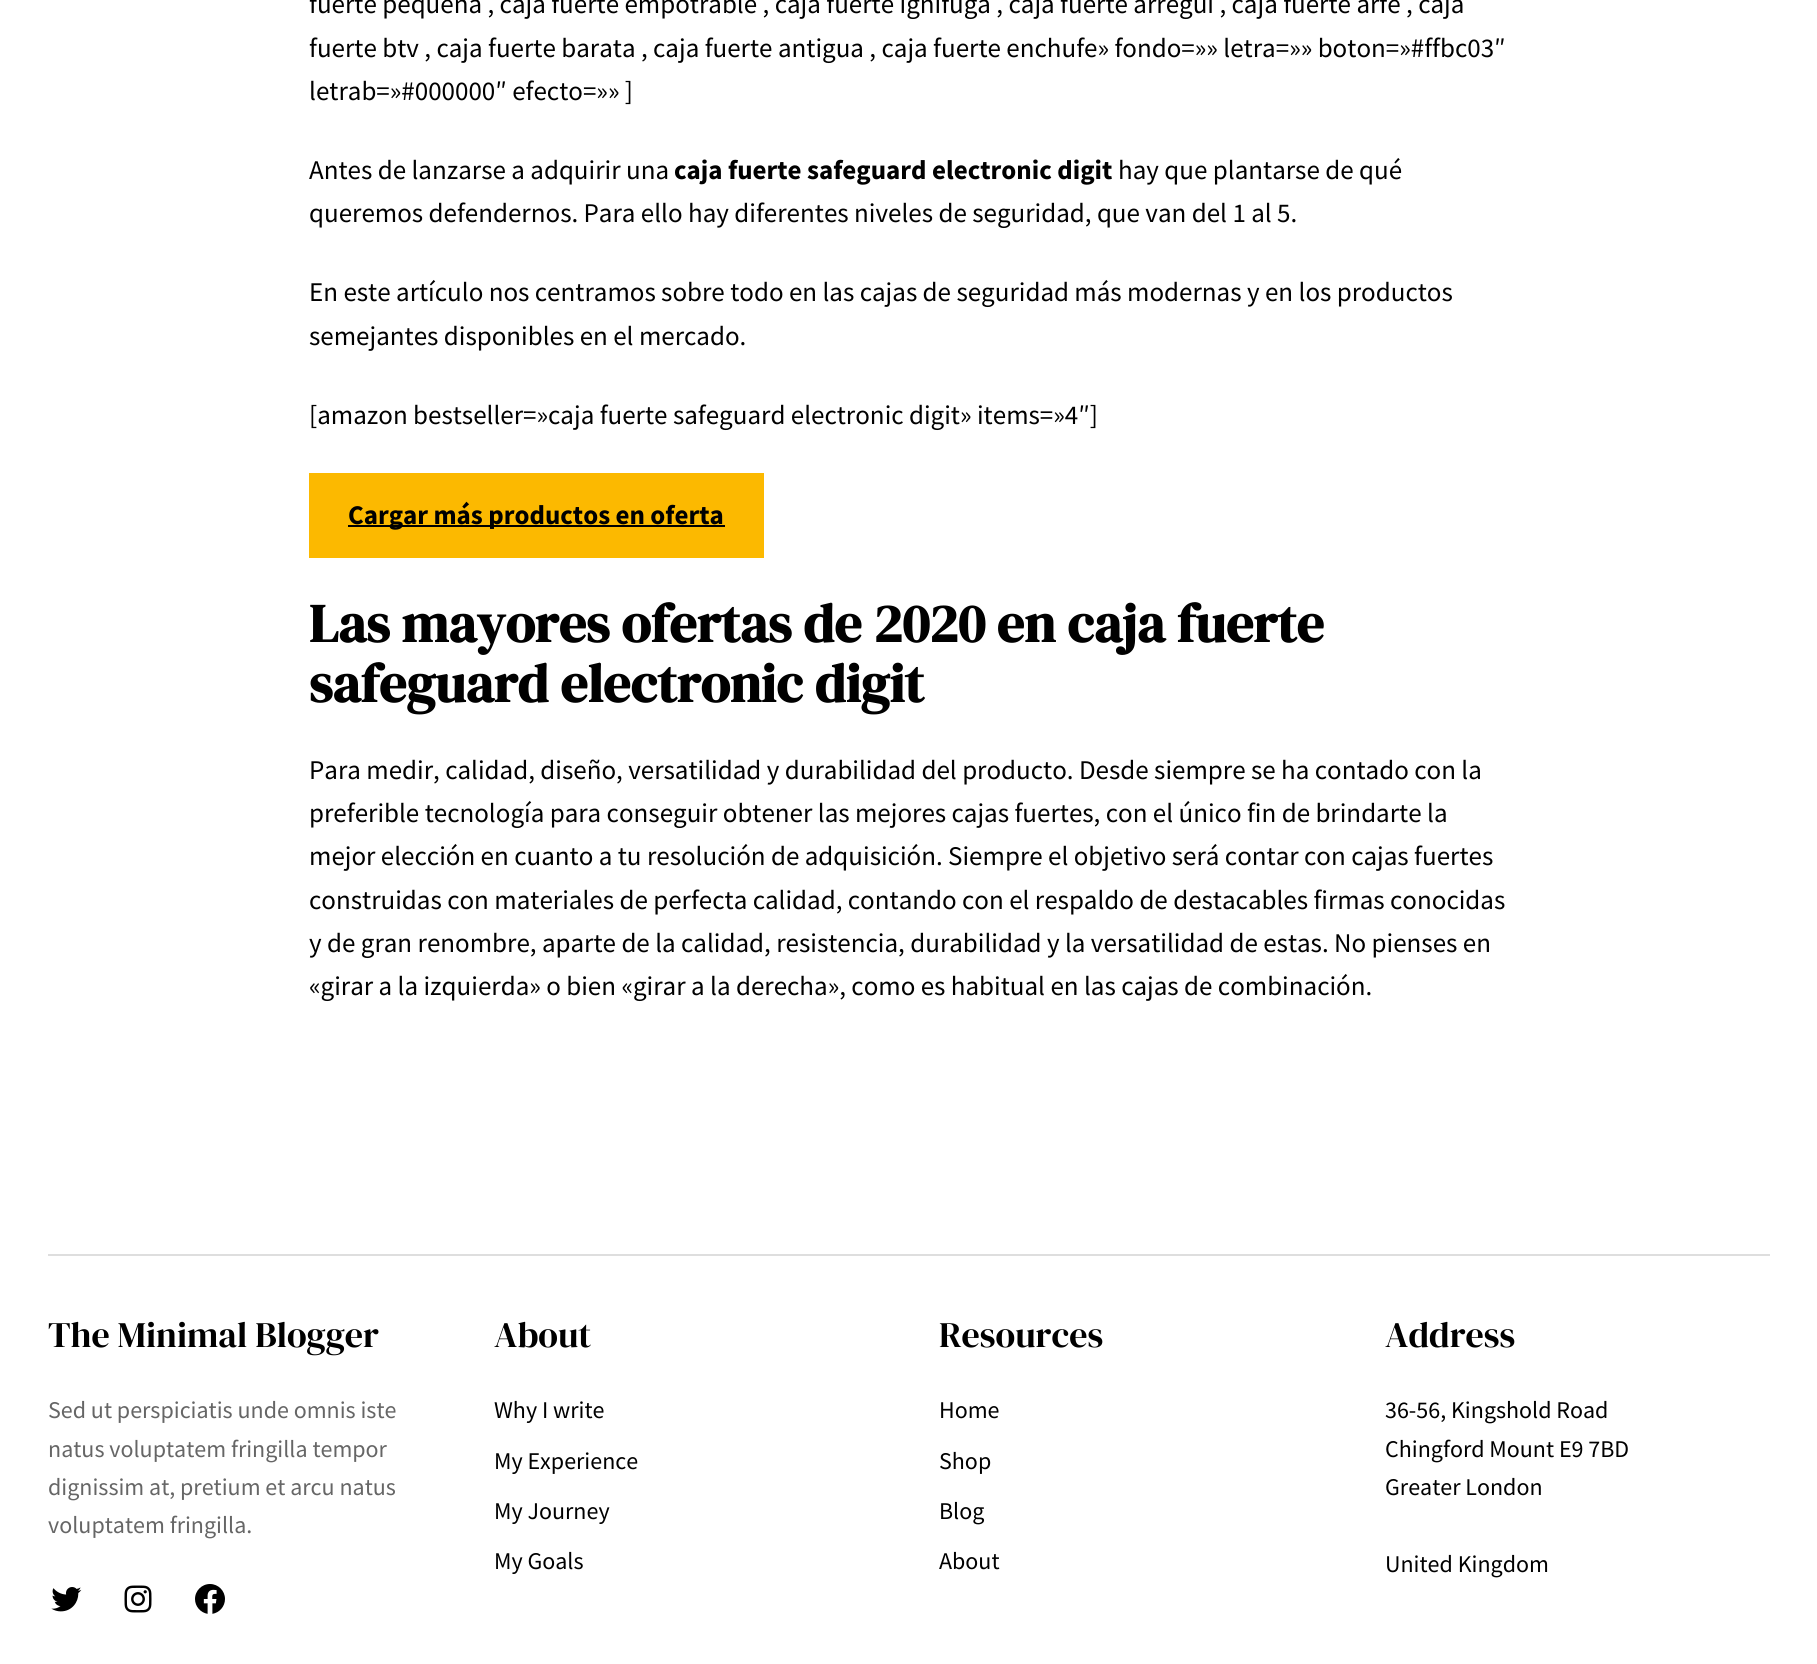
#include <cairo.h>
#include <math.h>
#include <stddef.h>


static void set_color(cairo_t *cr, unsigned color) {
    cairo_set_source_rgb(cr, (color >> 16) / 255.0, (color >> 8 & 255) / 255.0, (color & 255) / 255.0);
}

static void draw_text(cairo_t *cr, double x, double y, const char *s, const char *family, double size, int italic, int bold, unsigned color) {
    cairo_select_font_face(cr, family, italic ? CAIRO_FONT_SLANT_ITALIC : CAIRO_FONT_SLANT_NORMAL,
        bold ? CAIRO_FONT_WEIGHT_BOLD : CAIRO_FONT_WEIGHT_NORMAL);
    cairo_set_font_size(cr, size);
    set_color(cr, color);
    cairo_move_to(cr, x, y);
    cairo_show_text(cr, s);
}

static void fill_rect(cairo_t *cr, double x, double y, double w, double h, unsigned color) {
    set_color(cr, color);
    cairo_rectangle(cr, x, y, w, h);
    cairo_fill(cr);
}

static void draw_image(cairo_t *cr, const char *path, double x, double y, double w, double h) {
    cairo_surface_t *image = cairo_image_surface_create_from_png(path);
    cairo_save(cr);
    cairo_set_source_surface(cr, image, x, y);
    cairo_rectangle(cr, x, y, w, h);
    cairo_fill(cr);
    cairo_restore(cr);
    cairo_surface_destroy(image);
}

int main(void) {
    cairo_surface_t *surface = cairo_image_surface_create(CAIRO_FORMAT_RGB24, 1817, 1664);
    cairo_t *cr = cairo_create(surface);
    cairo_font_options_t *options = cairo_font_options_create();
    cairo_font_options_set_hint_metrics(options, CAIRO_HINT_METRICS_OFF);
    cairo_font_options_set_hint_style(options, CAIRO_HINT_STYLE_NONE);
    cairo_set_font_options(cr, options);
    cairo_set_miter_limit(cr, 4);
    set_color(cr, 0xFFFFFF);
    cairo_paint(cr);
    draw_text(cr, 309, 13, "fuerte pequeña , caja fuerte empotrable , caja fuerte ignifuga , caja fuerte arregui , caja fuerte arfe , caja", "Source Sans Pro", 27, 0, 0, 0x000000);
    draw_text(cr, 309, 57, "fuerte btv , caja fuerte barata , caja fuerte antigua , caja fuerte enchufe» fondo=»» letra=»» boton=»#ffbc03″", "Source Sans Pro", 27, 0, 0, 0x000000);
    draw_text(cr, 309, 100, "letrab=»#000000″ efecto=»» ]", "Source Sans Pro", 27, 0, 0, 0x000000);
    draw_text(cr, 309, 179, "Antes de lanzarse a adquirir una", "Source Sans Pro", 27, 0, 0, 0x000000);
    draw_text(cr, 674, 179, "caja fuerte safeguard electronic digit", "Source Sans Pro", 27, 0, 1, 0x000000);
    draw_text(cr, 1118, 179, "hay que plantarse de qué", "Source Sans Pro", 27, 0, 0, 0x000000);
    draw_text(cr, 309, 222, "queremos defendernos. Para ello hay diferentes niveles de seguridad, que van del 1 al 5.", "Source Sans Pro", 27, 0, 0, 0x000000);
    draw_text(cr, 309, 301, "En este artículo nos centramos sobre todo en las cajas de seguridad más modernas y en los productos", "Source Sans Pro", 27, 0, 0, 0x000000);
    draw_text(cr, 309, 345, "semejantes disponibles en el mercado.", "Source Sans Pro", 27, 0, 0, 0x000000);
    draw_text(cr, 309, 424, "[amazon bestseller=»caja fuerte safeguard electronic digit» items=»4″]", "Source Sans Pro", 27, 0, 0, 0x000000);
    fill_rect(cr, 309, 473, 455, 85, 0xFCB900);
    fill_rect(cr, 348, 525, 377, 2, 0x000000);
    draw_text(cr, 348, 524, "Cargar más productos en oferta", "Source Sans Pro", 27, 0, 1, 0x000000);
    draw_text(cr, 309, 642, "Las mayores ofertas de 2020 en caja fuerte", "DM Serif Display", 54, 0, 1, 0x000000);
    draw_text(cr, 309, 702, "safeguard electronic digit", "DM Serif Display", 54, 0, 1, 0x000000);
    draw_text(cr, 309, 779, "Para medir, calidad, diseño, versatilidad y durabilidad del producto. Desde siempre se ha contado con la", "Source Sans Pro", 27, 0, 0, 0x000000);
    draw_text(cr, 309, 822, "preferible tecnología para conseguir obtener las mejores cajas fuertes, con el único fin de brindarte la", "Source Sans Pro", 27, 0, 0, 0x000000);
    draw_text(cr, 309, 865, "mejor elección en cuanto a tu resolución de adquisición. Siempre el objetivo será contar con cajas fuertes", "Source Sans Pro", 27, 0, 0, 0x000000);
    draw_text(cr, 309, 909, "construidas con materiales de perfecta calidad, contando con el respaldo de destacables firmas conocidas", "Source Sans Pro", 27, 0, 0, 0x000000);
    draw_text(cr, 309, 952, "y de gran renombre, aparte de la calidad, resistencia, durabilidad y la versatilidad de estas. No pienses en", "Source Sans Pro", 27, 0, 0, 0x000000);
    draw_text(cr, 309, 995, "«girar a la izquierda» o bien «girar a la derecha», como es habitual en las cajas de combinación.", "Source Sans Pro", 27, 0, 0, 0x000000);
    fill_rect(cr, 48, 1254, 1722, 2, 0xDEDEDE);
    draw_text(cr, 48, 1347, "The Minimal Blogger", "DM Serif Display", 36, 0, 0, 0x000000);
    draw_text(cr, 48, 1418, "Sed ut perspiciatis unde omnis iste", "Source Sans Pro", 24, 0, 0, 0x666666);
    draw_text(cr, 48, 1457, "natus voluptatem fringilla tempor", "Source Sans Pro", 24, 0, 0, 0x666666);
    draw_text(cr, 48, 1495, "dignissim at, pretium et arcu natus", "Source Sans Pro", 24, 0, 0, 0x666666);
    draw_text(cr, 48, 1533, "voluptatem fringilla.", "Source Sans Pro", 24, 0, 0, 0x666666);
    draw_image(cr, "assets/img1.png", 51, 1587, 31, 25);
    draw_image(cr, "assets/img2.png", 124, 1585, 28, 28);
    draw_image(cr, "assets/img3.png", 195, 1584, 30, 30);
    draw_text(cr, 494, 1347, "About", "DM Serif Display", 36, 0, 0, 0x000000);
    draw_text(cr, 494, 1418, "Why I write", "Source Sans Pro", 24, 0, 0, 0x000000);
    draw_text(cr, 494, 1469, "My Experience", "Source Sans Pro", 24, 0, 0, 0x000000);
    draw_text(cr, 494, 1519, "My Journey", "Source Sans Pro", 24, 0, 0, 0x000000);
    draw_text(cr, 494, 1569, "My Goals", "Source Sans Pro", 24, 0, 0, 0x000000);
    draw_text(cr, 939, 1347, "Resources", "DM Serif Display", 36, 0, 0, 0x000000);
    draw_text(cr, 939, 1418, "Home", "Source Sans Pro", 24, 0, 0, 0x000000);
    draw_text(cr, 939, 1469, "Shop", "Source Sans Pro", 24, 0, 0, 0x000000);
    draw_text(cr, 939, 1519, "Blog", "Source Sans Pro", 24, 0, 0, 0x000000);
    draw_text(cr, 939, 1569, "About", "Source Sans Pro", 24, 0, 0, 0x000000);
    draw_text(cr, 1385, 1347, "Address", "DM Serif Display", 36, 0, 0, 0x000000);
    draw_text(cr, 1385, 1418, "36-56, Kingshold Road", "Source Sans Pro", 24, 0, 0, 0x000000);
    draw_text(cr, 1385, 1457, "Chingford Mount E9 7BD", "Source Sans Pro", 24, 0, 0, 0x000000);
    draw_text(cr, 1385, 1495, "Greater London", "Source Sans Pro", 24, 0, 0, 0x000000);
    draw_text(cr, 1385, 1572, "United Kingdom", "Source Sans Pro", 24, 0, 0, 0x000000);
    cairo_surface_write_to_png(surface, "output.png");
    cairo_font_options_destroy(options);
    cairo_destroy(cr);
    cairo_surface_destroy(surface);
    return 0;
}
